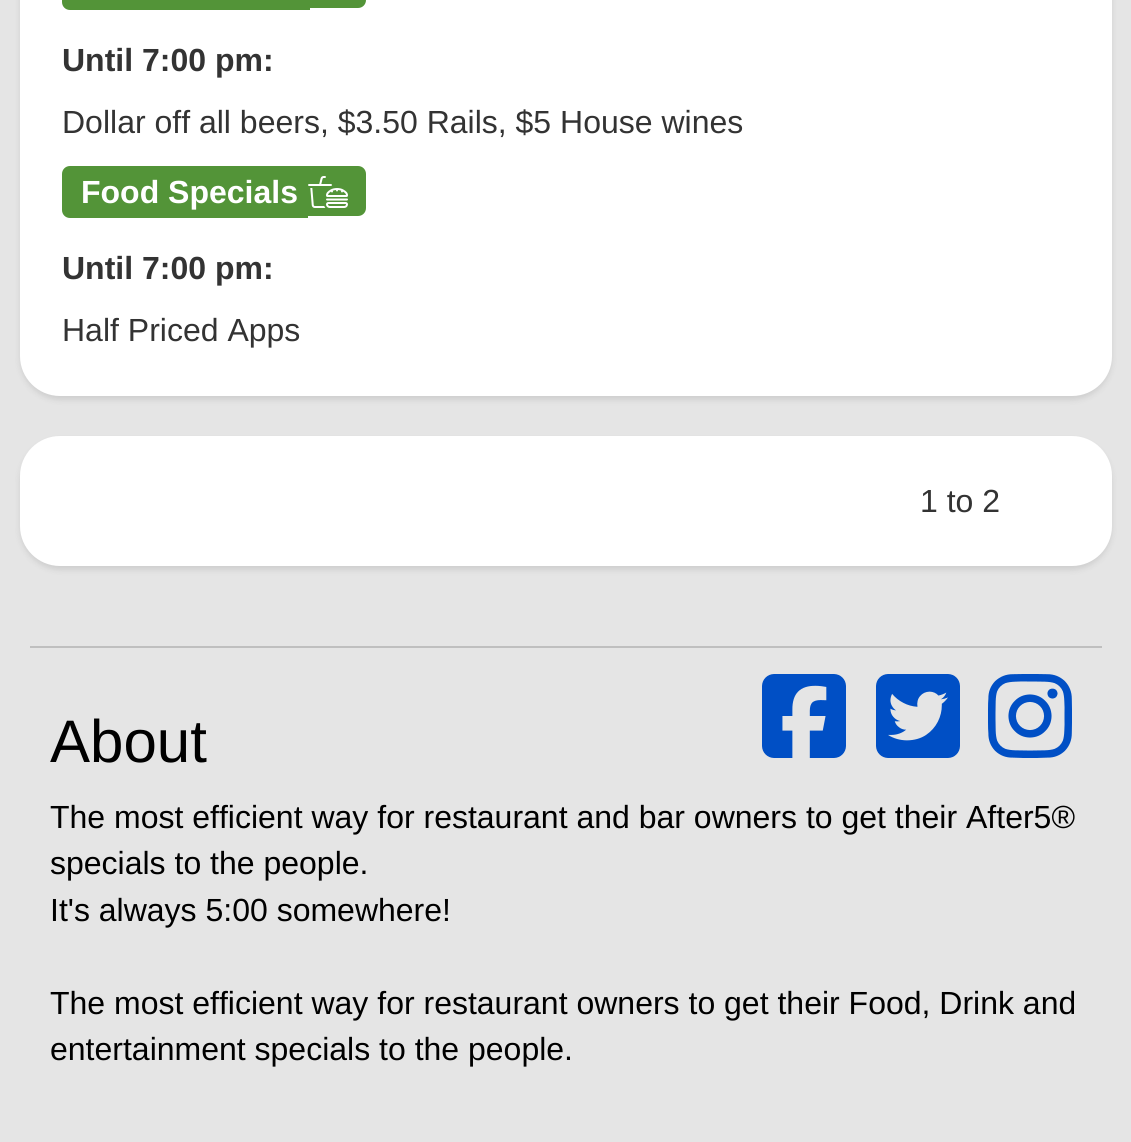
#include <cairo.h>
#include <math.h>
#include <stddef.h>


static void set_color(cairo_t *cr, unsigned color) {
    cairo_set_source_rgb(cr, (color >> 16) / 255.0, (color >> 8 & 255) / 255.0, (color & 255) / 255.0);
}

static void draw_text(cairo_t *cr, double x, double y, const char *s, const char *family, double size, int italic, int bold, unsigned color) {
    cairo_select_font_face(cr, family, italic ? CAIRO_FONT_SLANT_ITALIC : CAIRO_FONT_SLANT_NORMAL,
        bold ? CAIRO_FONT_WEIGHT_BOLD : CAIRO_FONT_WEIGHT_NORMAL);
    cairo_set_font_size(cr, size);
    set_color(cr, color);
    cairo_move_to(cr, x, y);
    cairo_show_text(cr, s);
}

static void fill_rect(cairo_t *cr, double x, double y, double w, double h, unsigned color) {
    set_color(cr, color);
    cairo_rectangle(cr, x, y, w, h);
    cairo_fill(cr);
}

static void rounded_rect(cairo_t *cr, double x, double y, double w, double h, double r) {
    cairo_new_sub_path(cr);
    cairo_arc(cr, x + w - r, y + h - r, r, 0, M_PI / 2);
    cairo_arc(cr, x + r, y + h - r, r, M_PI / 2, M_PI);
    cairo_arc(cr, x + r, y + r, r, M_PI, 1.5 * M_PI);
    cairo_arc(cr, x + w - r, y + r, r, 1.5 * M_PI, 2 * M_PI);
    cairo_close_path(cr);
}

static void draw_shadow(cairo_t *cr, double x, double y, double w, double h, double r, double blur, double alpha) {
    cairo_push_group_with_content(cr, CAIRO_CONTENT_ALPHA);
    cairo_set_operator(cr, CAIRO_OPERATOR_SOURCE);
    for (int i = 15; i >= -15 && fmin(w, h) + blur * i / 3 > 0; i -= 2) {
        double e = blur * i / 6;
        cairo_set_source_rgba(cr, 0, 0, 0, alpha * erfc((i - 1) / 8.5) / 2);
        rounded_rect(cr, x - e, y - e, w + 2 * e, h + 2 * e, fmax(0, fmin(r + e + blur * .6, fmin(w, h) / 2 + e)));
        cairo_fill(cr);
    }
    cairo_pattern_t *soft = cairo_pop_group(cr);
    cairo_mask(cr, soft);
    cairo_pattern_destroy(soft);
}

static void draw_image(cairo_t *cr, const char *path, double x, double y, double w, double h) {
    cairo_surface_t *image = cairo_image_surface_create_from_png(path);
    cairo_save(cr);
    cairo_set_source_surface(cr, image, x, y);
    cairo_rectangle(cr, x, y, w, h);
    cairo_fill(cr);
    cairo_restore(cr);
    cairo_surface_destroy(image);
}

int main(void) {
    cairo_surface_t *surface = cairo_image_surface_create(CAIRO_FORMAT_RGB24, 1131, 1142);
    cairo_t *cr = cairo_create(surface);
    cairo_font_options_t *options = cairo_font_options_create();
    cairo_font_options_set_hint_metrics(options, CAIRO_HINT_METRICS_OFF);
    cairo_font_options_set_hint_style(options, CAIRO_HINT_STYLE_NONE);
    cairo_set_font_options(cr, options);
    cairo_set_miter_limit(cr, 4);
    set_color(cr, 0xE5E5E5);
    cairo_paint(cr);
    set_color(cr, 0x000000);
    draw_shadow(cr, 20, -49, 1092, 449, 40, 3, 0.1);
    set_color(cr, 0xFFFFFF);
    rounded_rect(cr, 21, -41, 1090, 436, 39);
    cairo_fill_preserve(cr);
    cairo_stroke(cr);
    set_color(cr, 0x539438);
    cairo_new_path(cr);
    cairo_move_to(cr, 70, -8);
    cairo_line_to(cr, 310, -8);
    cairo_line_to(cr, 310, 10);
    cairo_line_to(cr, 70, 10);
    cairo_curve_to(cr, 65.5, 10, 62, 6.5, 62, 2);
    cairo_line_to(cr, 62, 0);
    cairo_curve_to(cr, 62, -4.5, 65.5, -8, 70, -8);
    cairo_close_path(cr);
    cairo_fill(cr);
    cairo_new_path(cr);
    cairo_move_to(cr, 310, -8);
    cairo_line_to(cr, 358, -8);
    cairo_curve_to(cr, 362.5, -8, 366, -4.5, 366, 0);
    cairo_curve_to(cr, 366, 4.5, 362.5, 8, 358, 8);
    cairo_line_to(cr, 310, 8);
    cairo_close_path(cr);
    cairo_fill(cr);
    draw_text(cr, 62, 71, "Until 7:00 pm:", "Liberation Sans", 32, 0, 1, 0x333333);
    draw_text(cr, 62, 133, "Dollar off all beers, $3.50 Rails, $5 House wines", "Liberation Sans", 32, 0, 0, 0x333333);
    set_color(cr, 0x539438);
    cairo_new_path(cr);
    cairo_move_to(cr, 70, 166);
    cairo_line_to(cr, 308, 166);
    cairo_line_to(cr, 308, 218);
    cairo_line_to(cr, 70, 218);
    cairo_curve_to(cr, 65.5, 218, 62, 214.5, 62, 210);
    cairo_line_to(cr, 62, 174);
    cairo_curve_to(cr, 62, 169.5, 65.5, 166, 70, 166);
    cairo_close_path(cr);
    cairo_fill(cr);
    cairo_new_path(cr);
    cairo_move_to(cr, 308, 166);
    cairo_line_to(cr, 358, 166);
    cairo_curve_to(cr, 362.5, 166, 366, 169.5, 366, 174);
    cairo_line_to(cr, 366, 208);
    cairo_curve_to(cr, 366, 212.5, 362.5, 216, 358, 216);
    cairo_line_to(cr, 308, 216);
    cairo_close_path(cr);
    cairo_fill(cr);
    draw_text(cr, 81, 203, "Food Specials", "Liberation Sans", 32, 0, 1, 0xFFFFFF);
    draw_image(cr, "assets/img1.png", 308, 176, 40, 32);
    draw_text(cr, 62, 279, "Until 7:00 pm:", "Liberation Sans", 32, 0, 1, 0x333333);
    draw_text(cr, 62, 341, "Half Priced Apps", "Liberation Sans", 32, 0, 0, 0x333333);
    set_color(cr, 0x000000);
    draw_shadow(cr, 20, 440, 1092, 130, 40, 3, 0.1);
    set_color(cr, 0xFFFFFF);
    rounded_rect(cr, 21, 437, 1090, 128, 39);
    cairo_fill_preserve(cr);
    cairo_stroke(cr);
    draw_text(cr, 920, 512, "1 to 2", "Liberation Sans", 32, 0, 0, 0x333333);
    fill_rect(cr, 30, 646, 1072, 2, 0xBFBFBF);
    draw_image(cr, "assets/img2.png", 762, 674, 84, 84);
    draw_image(cr, "assets/img3.png", 876, 674, 84, 84);
    draw_image(cr, "assets/img4.png", 988, 674, 84, 84);
    draw_text(cr, 50, 762, "About", "Liberation Sans", 60, 0, 0, 0x000000);
    draw_text(cr, 50, 828, "The most efficient way for restaurant and bar owners to get their After5®", "Liberation Sans", 32, 0, 0, 0x000000);
    draw_text(cr, 50, 874, "specials to the people.", "Liberation Sans", 32, 0, 0, 0x000000);
    draw_text(cr, 50, 921, "It's always 5:00 somewhere!", "Liberation Sans", 32, 0, 0, 0x000000);
    draw_text(cr, 50, 1014, "The most efficient way for restaurant owners to get their Food, Drink and", "Liberation Sans", 32, 0, 0, 0x000000);
    draw_text(cr, 50, 1060, "entertainment specials to the people.", "Liberation Sans", 32, 0, 0, 0x000000);
    cairo_surface_write_to_png(surface, "output.png");
    cairo_font_options_destroy(options);
    cairo_destroy(cr);
    cairo_surface_destroy(surface);
    return 0;
}
